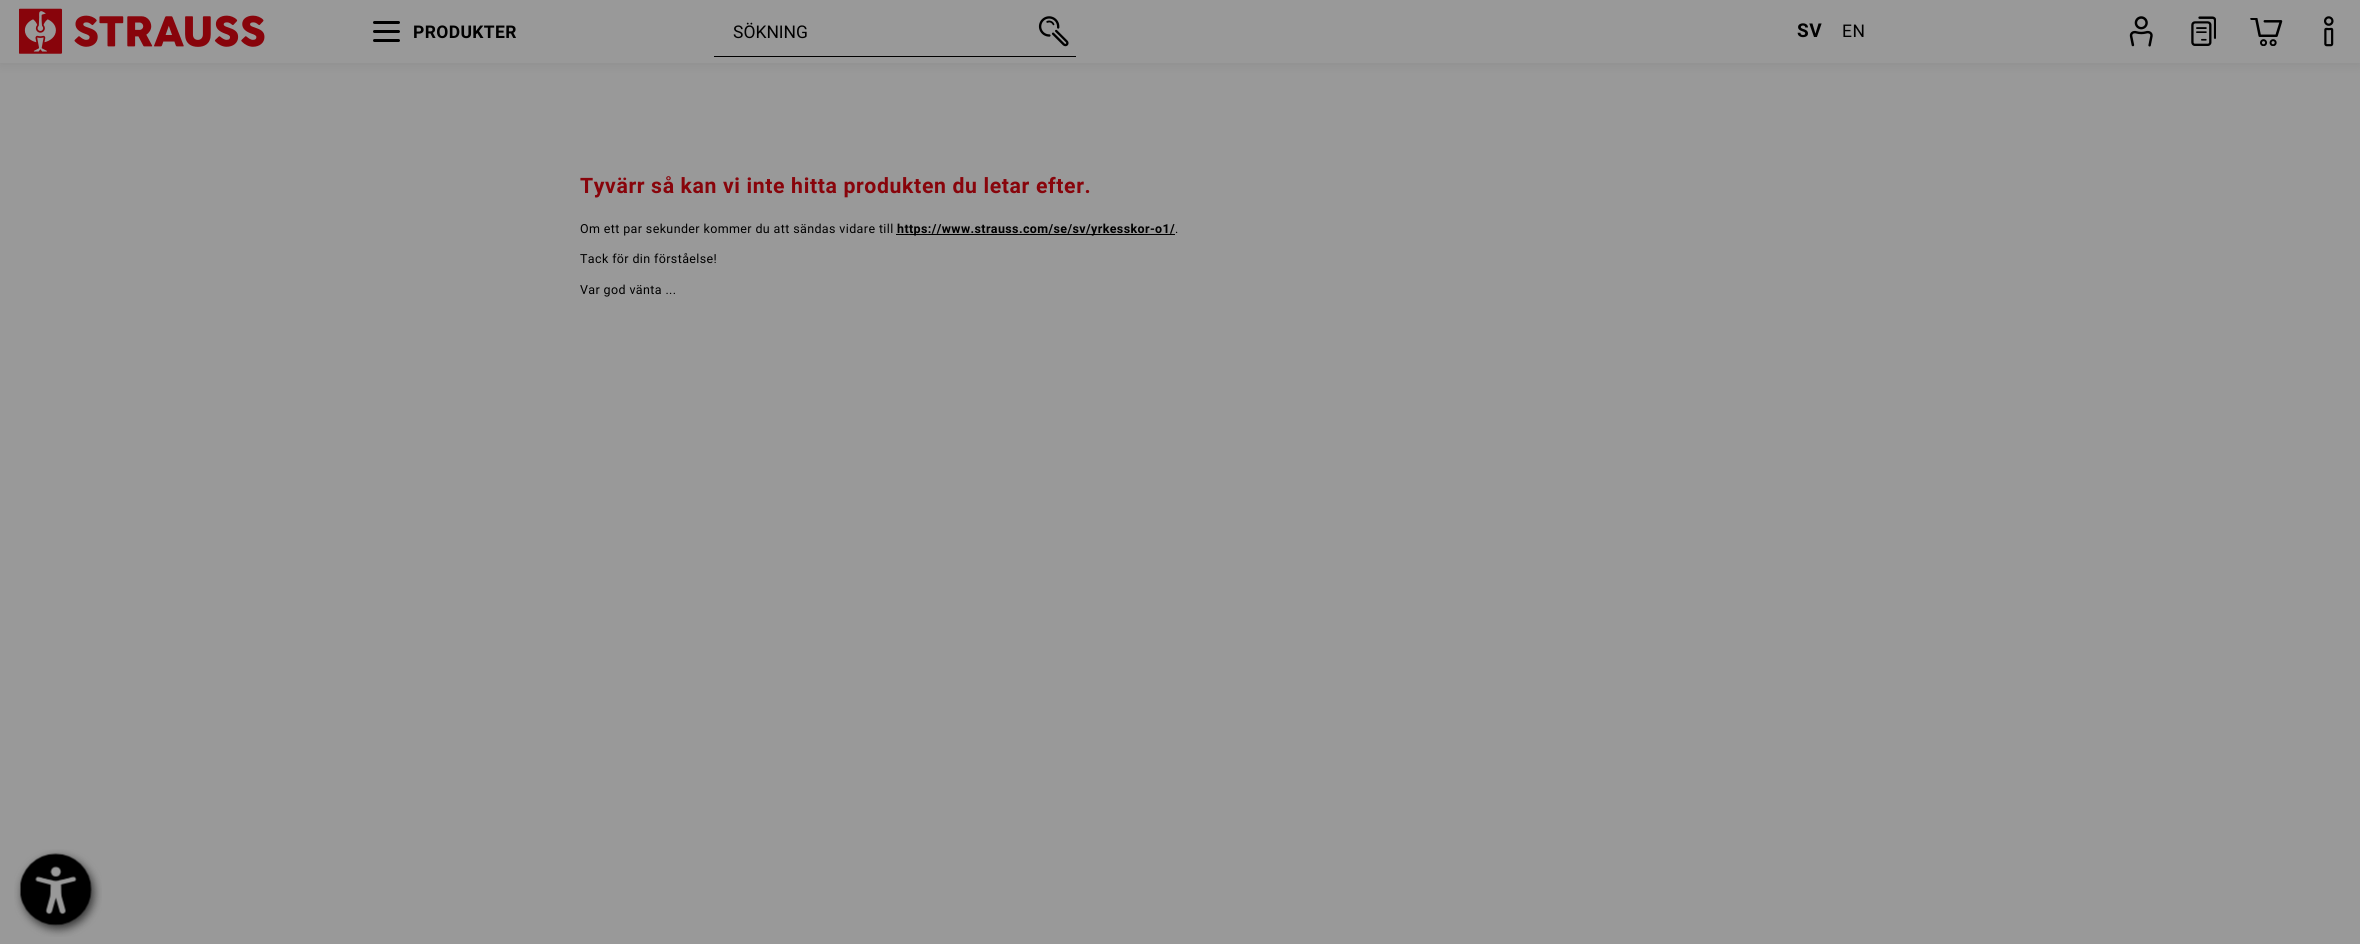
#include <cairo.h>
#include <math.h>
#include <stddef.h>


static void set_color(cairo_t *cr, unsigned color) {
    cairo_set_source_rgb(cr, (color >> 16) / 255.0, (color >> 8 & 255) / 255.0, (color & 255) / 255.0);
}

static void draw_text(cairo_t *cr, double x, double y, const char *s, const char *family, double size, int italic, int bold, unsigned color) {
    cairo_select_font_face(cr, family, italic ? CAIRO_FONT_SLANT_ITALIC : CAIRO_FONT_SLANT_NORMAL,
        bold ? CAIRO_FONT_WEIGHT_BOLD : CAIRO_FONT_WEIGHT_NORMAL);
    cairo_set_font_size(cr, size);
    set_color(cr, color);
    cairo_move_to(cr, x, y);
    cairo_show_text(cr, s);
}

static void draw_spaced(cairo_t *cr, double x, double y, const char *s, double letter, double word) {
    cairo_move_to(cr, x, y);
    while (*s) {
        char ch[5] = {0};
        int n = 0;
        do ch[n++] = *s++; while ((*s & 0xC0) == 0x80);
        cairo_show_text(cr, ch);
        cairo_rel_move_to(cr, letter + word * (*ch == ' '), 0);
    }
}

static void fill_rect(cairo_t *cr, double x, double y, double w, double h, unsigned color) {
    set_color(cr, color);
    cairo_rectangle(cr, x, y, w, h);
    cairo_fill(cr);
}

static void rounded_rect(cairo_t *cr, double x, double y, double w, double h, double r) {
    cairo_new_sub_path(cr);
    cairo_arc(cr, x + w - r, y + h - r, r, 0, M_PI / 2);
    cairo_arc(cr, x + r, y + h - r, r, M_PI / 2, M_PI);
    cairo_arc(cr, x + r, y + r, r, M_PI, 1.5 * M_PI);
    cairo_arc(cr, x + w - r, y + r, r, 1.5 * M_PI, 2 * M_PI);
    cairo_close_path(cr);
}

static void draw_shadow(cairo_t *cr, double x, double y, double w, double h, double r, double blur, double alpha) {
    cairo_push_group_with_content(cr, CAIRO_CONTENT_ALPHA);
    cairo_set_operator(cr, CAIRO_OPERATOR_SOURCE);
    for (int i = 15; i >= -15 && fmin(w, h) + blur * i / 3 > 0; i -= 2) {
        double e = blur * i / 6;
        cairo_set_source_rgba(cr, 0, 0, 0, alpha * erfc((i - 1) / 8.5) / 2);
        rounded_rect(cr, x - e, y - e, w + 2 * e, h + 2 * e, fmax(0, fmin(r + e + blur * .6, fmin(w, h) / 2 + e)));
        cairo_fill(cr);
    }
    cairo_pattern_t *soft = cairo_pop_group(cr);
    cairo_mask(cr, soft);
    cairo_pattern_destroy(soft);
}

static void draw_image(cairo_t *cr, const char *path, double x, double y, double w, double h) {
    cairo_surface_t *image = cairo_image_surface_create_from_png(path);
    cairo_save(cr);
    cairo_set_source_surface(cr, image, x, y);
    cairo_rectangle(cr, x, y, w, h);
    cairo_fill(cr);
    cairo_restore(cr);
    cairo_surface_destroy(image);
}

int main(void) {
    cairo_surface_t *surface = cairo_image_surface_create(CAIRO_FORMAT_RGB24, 2360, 944);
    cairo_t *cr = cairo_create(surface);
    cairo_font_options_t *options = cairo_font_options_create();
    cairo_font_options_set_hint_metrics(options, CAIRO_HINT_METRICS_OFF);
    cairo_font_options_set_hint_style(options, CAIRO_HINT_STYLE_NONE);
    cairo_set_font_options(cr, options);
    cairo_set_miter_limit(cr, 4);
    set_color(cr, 0x999999);
    cairo_paint(cr);
    set_color(cr, 0x000000);
    draw_shadow(cr, 0, 1, 2360, 63, 0, 6, 0.08);
    fill_rect(cr, 0, 0, 2360, 63, 0x999999);
    draw_image(cr, "assets/img1.png", 19, 8, 246, 46);
    set_color(cr, 0x000000);
    rounded_rect(cr, 373, 21, 27, 3, 1.5);
    cairo_fill(cr);
    rounded_rect(cr, 373, 30, 27, 3, 1.5);
    cairo_fill(cr);
    rounded_rect(cr, 373, 39, 27, 3, 1.5);
    cairo_fill(cr);
    cairo_select_font_face(cr, "Roboto", CAIRO_FONT_SLANT_NORMAL, CAIRO_FONT_WEIGHT_BOLD);
    cairo_set_font_size(cr, 17.5);
    draw_spaced(cr, 413, 38, "PRODUKTER", 0.38, 0);
    fill_rect(cr, 714, 56, 362, 1, 0x000000);
    draw_text(cr, 733, 38, "SÖKNING", "Roboto", 17.5, 0, 0, 0x000000);
    draw_image(cr, "assets/img2.png", 1038, 16, 31, 31);
    cairo_select_font_face(cr, "Roboto", CAIRO_FONT_SLANT_NORMAL, CAIRO_FONT_WEIGHT_BOLD);
    cairo_set_font_size(cr, 19);
    draw_spaced(cr, 1797, 37, "SV", 0.62, 0);
    cairo_select_font_face(cr, "Roboto", CAIRO_FONT_SLANT_NORMAL, CAIRO_FONT_WEIGHT_NORMAL);
    cairo_set_font_size(cr, 17.5);
    draw_spaced(cr, 1842, 37, "EN", 0.62, 0);
    draw_image(cr, "assets/img3.png", 2129, 16, 24, 31);
    draw_image(cr, "assets/img4.png", 2191, 16, 25, 30);
    draw_image(cr, "assets/img5.png", 2250, 18, 33, 28);
    draw_image(cr, "assets/img6.png", 2324, 16, 10, 31);
    cairo_select_font_face(cr, "Roboto", CAIRO_FONT_SLANT_NORMAL, CAIRO_FONT_WEIGHT_BOLD);
    cairo_set_font_size(cr, 21.25);
    set_color(cr, 0x88040B);
    draw_spaced(cr, 580, 193, "Tyvärr så kan vi inte hitta produkten du letar efter.", 0.62, 0);
    cairo_select_font_face(cr, "Roboto", CAIRO_FONT_SLANT_NORMAL, CAIRO_FONT_WEIGHT_NORMAL);
    cairo_set_font_size(cr, 12.5);
    set_color(cr, 0x000000);
    draw_spaced(cr, 580, 233, "Om ett par sekunder kommer du att sändas vidare till", 0.38, 0);
    fill_rect(cr, 896, 234, 279, 1, 0x000000);
    cairo_select_font_face(cr, "Roboto", CAIRO_FONT_SLANT_NORMAL, CAIRO_FONT_WEIGHT_BOLD);
    draw_spaced(cr, 897, 233, "https://www.strauss.com/se/sv/yrkesskor-o1/", 0.38, 0);
    cairo_select_font_face(cr, "Roboto", CAIRO_FONT_SLANT_NORMAL, CAIRO_FONT_WEIGHT_NORMAL);
    draw_spaced(cr, 1175, 233, ".", 0.38, 0);
    draw_spaced(cr, 580, 263, "Tack för din förståelse!", 0.38, 0);
    draw_spaced(cr, 580, 294, "Var god vänta ...", 0.38, 0);
    draw_image(cr, "assets/img7.png", 14, 849, 88, 88);
    cairo_surface_write_to_png(surface, "output.png");
    cairo_font_options_destroy(options);
    cairo_destroy(cr);
    cairo_surface_destroy(surface);
    return 0;
}
